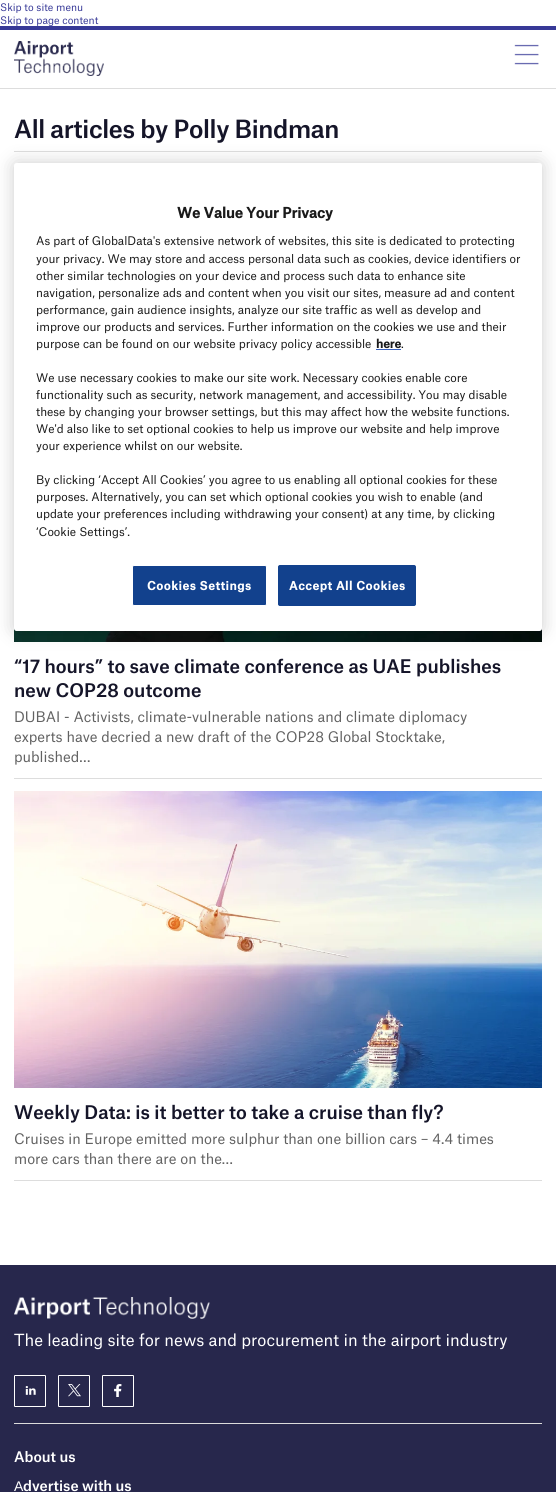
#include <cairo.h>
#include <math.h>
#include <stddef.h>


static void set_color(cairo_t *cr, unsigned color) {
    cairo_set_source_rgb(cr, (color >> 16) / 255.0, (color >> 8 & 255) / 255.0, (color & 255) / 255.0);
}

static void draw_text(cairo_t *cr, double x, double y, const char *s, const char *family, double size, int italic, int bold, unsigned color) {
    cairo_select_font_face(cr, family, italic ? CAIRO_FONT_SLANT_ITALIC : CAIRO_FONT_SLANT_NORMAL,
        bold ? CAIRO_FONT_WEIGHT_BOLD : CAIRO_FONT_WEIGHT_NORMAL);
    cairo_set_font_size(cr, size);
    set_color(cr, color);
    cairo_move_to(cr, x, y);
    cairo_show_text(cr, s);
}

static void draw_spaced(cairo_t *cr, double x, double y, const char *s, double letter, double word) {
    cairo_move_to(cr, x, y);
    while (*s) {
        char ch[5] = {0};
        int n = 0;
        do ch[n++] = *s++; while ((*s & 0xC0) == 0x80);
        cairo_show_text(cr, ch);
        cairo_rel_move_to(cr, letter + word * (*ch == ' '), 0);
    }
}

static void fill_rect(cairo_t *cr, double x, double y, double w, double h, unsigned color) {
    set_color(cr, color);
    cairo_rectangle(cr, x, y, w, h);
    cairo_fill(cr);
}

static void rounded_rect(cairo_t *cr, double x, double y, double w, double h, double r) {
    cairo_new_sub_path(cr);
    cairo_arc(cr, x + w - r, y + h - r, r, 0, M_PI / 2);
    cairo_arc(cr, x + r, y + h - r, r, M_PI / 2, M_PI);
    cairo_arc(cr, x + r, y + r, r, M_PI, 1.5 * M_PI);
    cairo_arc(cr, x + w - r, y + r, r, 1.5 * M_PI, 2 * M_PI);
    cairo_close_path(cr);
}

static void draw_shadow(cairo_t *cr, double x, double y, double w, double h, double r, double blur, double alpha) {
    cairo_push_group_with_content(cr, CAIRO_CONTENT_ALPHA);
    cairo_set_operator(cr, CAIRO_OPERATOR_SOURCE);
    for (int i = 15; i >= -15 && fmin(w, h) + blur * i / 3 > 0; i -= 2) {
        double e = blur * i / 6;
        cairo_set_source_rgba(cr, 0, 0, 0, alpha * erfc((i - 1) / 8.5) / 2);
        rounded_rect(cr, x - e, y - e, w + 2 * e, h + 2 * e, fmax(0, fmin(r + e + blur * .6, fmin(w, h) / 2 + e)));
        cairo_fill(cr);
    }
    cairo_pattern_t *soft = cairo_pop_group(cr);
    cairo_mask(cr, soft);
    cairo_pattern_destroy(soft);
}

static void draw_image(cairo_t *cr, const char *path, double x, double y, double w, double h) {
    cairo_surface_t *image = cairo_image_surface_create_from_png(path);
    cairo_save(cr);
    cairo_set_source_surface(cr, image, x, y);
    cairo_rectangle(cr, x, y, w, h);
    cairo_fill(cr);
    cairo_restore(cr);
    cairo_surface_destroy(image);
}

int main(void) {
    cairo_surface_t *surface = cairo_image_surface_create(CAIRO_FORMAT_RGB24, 556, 1492);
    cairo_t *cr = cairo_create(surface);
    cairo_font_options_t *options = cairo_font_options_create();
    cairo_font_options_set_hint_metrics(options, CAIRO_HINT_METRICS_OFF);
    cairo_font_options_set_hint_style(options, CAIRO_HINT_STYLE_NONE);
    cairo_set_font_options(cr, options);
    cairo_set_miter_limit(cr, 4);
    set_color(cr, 0xFFFFFF);
    cairo_paint(cr);
    draw_text(cr, 0, 11, "Skip to site menu", "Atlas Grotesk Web", 10, 0, 0, 0x373997);
    draw_text(cr, 0, 24, "Skip to page content", "Atlas Grotesk Web", 10, 0, 0, 0x373997);
    fill_rect(cr, 0, 26, 556, 4, 0x373997);
    fill_rect(cr, 0, 88, 556, 1, 0xDDDDDD);
    draw_image(cr, "assets/img1.png", 14, 41, 90, 35);
    draw_image(cr, "assets/img2.png", 514, 44, 25, 21);
    fill_rect(cr, 14, 151, 528, 1, 0xDDDDDD);
    cairo_select_font_face(cr, "Atlas Grotesk Web Medium", CAIRO_FONT_SLANT_NORMAL, CAIRO_FONT_WEIGHT_NORMAL);
    cairo_set_font_size(cr, 24);
    set_color(cr, 0x151529);
    draw_spaced(cr, 14, 138, "All articles by Polly Bindman", -0.35, 0);
    fill_rect(cr, 14, 778, 528, 1, 0xDDDDDD);
    draw_image(cr, "assets/img3.png", 14, 628, 528, 14);
    draw_text(cr, 14, 673, "“17 hours” to save climate conference as UAE publishes", "Atlas Grotesk Web Medium", 18, 0, 0, 0x151529);
    draw_text(cr, 14, 697, "new COP28 outcome", "Atlas Grotesk Web Medium", 18, 0, 0, 0x151529);
    draw_text(cr, 14, 722, "DUBAI - Activists, climate-vulnerable nations and climate diplomacy", "Atlas Grotesk Web", 14, 0, 0, 0x626262);
    draw_text(cr, 14, 742, "experts have decried a new draft of the COP28 Global Stocktake,", "Atlas Grotesk Web", 14, 0, 0, 0x626262);
    draw_text(cr, 14, 762, "published…", "Atlas Grotesk Web", 14, 0, 0, 0x626262);
    fill_rect(cr, 14, 1180, 528, 1, 0xDDDDDD);
    draw_image(cr, "assets/img4.png", 14, 791, 528, 297);
    draw_text(cr, 14, 1119, "Weekly Data: is it better to take a cruise than fly?", "Atlas Grotesk Web Medium", 18, 0, 0, 0x151529);
    draw_text(cr, 14, 1144, "Cruises in Europe emitted more sulphur than one billion cars – 4.4 times", "Atlas Grotesk Web", 14, 0, 0, 0x626262);
    draw_text(cr, 14, 1164, "more cars than there are on the…", "Atlas Grotesk Web", 14, 0, 0, 0x626262);
    set_color(cr, 0x000000);
    draw_shadow(cr, 14, 163, 528, 468, 2.5, 9, 0.2);
    set_color(cr, 0xFFFFFF);
    rounded_rect(cr, 14, 163, 528, 468, 2.5);
    cairo_fill(cr);
    draw_text(cr, 177, 218, "We Value Your Privacy", "Atlas Grotesk Web", 14, 0, 1, 0x1A1A1A);
    draw_text(cr, 36, 245, "As part of GlobalData's extensive network of websites, this site is dedicated to protecting", "Atlas Grotesk Web", 11.4, 0, 0, 0x1A1A1A);
    draw_text(cr, 36, 263, "your privacy. We may store and access personal data such as cookies, device identifiers or", "Atlas Grotesk Web", 11.4, 0, 0, 0x1A1A1A);
    draw_text(cr, 36, 280, "other similar technologies on your device and process such data to enhance site", "Atlas Grotesk Web", 11.4, 0, 0, 0x1A1A1A);
    draw_text(cr, 36, 297, "navigation, personalize ads and content when you visit our sites, measure ad and content", "Atlas Grotesk Web", 11.4, 0, 0, 0x1A1A1A);
    draw_text(cr, 36, 314, "performance, gain audience insights, analyze our site traffic as well as develop and", "Atlas Grotesk Web", 11.4, 0, 0, 0x1A1A1A);
    draw_text(cr, 36, 331, "improve our products and services. Further information on the cookies we use and their", "Atlas Grotesk Web", 11.4, 0, 0, 0x1A1A1A);
    draw_text(cr, 36, 348, "purpose can be found on our website privacy policy accessible", "Atlas Grotesk Web", 11.4, 0, 0, 0x1A1A1A);
    draw_text(cr, 376, 348, "here", "Atlas Grotesk Web", 11.4, 0, 1, 0x1A1A1A);
    fill_rect(cr, 376, 349, 25, 1, 0x3860BE);
    draw_text(cr, 401, 348, ".", "Atlas Grotesk Web", 11.4, 0, 0, 0x1A1A1A);
    draw_text(cr, 36, 382, "We use necessary cookies to make our site work. Necessary cookies enable core", "Atlas Grotesk Web", 11.4, 0, 0, 0x1A1A1A);
    draw_text(cr, 36, 399, "functionality such as security, network management, and accessibility. You may disable", "Atlas Grotesk Web", 11.4, 0, 0, 0x1A1A1A);
    draw_text(cr, 36, 416, "these by changing your browser settings, but this may affect how the website functions.", "Atlas Grotesk Web", 11.4, 0, 0, 0x1A1A1A);
    draw_text(cr, 36, 433, "We'd also like to set optional cookies to help us improve our website and help improve", "Atlas Grotesk Web", 11.4, 0, 0, 0x1A1A1A);
    draw_text(cr, 36, 450, "your experience whilst on our website.", "Atlas Grotesk Web", 11.4, 0, 0, 0x1A1A1A);
    draw_text(cr, 36, 484, "By clicking ‘Accept All Cookies’ you agree to us enabling all optional cookies for these", "Atlas Grotesk Web", 11.4, 0, 0, 0x1A1A1A);
    draw_text(cr, 36, 501, "purposes. Alternatively, you can set which optional cookies you wish to enable (and", "Atlas Grotesk Web", 11.4, 0, 0, 0x1A1A1A);
    draw_text(cr, 36, 518, "update your preferences including withdrawing your consent) at any time, by clicking", "Atlas Grotesk Web", 11.4, 0, 0, 0x1A1A1A);
    draw_text(cr, 36, 536, "‘Cookie Settings’.", "Atlas Grotesk Web", 11.4, 0, 0, 0x1A1A1A);
    set_color(cr, 0x12418D);
    rounded_rect(cr, 132.5, 565.5, 134, 40, 1.5);
    cairo_fill_preserve(cr);
    set_color(cr, 0xFFFFFF);
    cairo_set_line_width(cr, 1);
    cairo_stroke(cr);
    cairo_select_font_face(cr, "Atlas Grotesk Web", CAIRO_FONT_SLANT_NORMAL, CAIRO_FONT_WEIGHT_BOLD);
    draw_spaced(cr, 147, 590, "Cookies Settings", 0.6, 0);
    set_color(cr, 0x12418D);
    rounded_rect(cr, 278.5, 565.5, 137, 40, 1.5);
    cairo_fill_preserve(cr);
    cairo_stroke(cr);
    set_color(cr, 0xFFFFFF);
    draw_spaced(cr, 289, 590, "Accept All Cookies", 0.6, 0);
    fill_rect(cr, 0, 1265, 556, 227, 0x27274C);
    draw_image(cr, "assets/img5.png", 14, 1297, 196, 22);
    draw_text(cr, 14, 1346, "The leading site for news and procurement in the airport industry", "Atlas Grotesk Web", 16, 0, 0, 0xFFFFFF);
    rounded_rect(cr, 14.5, 1375.5, 31, 31, 0.5);
    cairo_stroke(cr);
    draw_image(cr, "assets/img6.png", 25, 1386, 11, 9);
    rounded_rect(cr, 58.5, 1375.5, 31, 31, 0.5);
    cairo_stroke(cr);
    draw_image(cr, "assets/img7.png", 68, 1384, 13, 13);
    rounded_rect(cr, 102.5, 1375.5, 31, 31, 0.5);
    cairo_stroke(cr);
    draw_image(cr, "assets/img8.png", 114, 1384, 8, 13);
    fill_rect(cr, 14, 1423, 528, 1, 0xDBDBDB);
    draw_text(cr, 14, 1462, "About us", "Atlas Grotesk Web Medium", 14, 0, 0, 0xFFFFFF);
    draw_text(cr, 14, 1491, "А", "Liberation Sans", 14, 0, 0, 0xFFFFFF);
    draw_text(cr, 23, 1491, "dvertise with us", "Atlas Grotesk Web Medium", 14, 0, 0, 0xFFFFFF);
    cairo_surface_write_to_png(surface, "output.png");
    cairo_font_options_destroy(options);
    cairo_destroy(cr);
    cairo_surface_destroy(surface);
    return 0;
}
